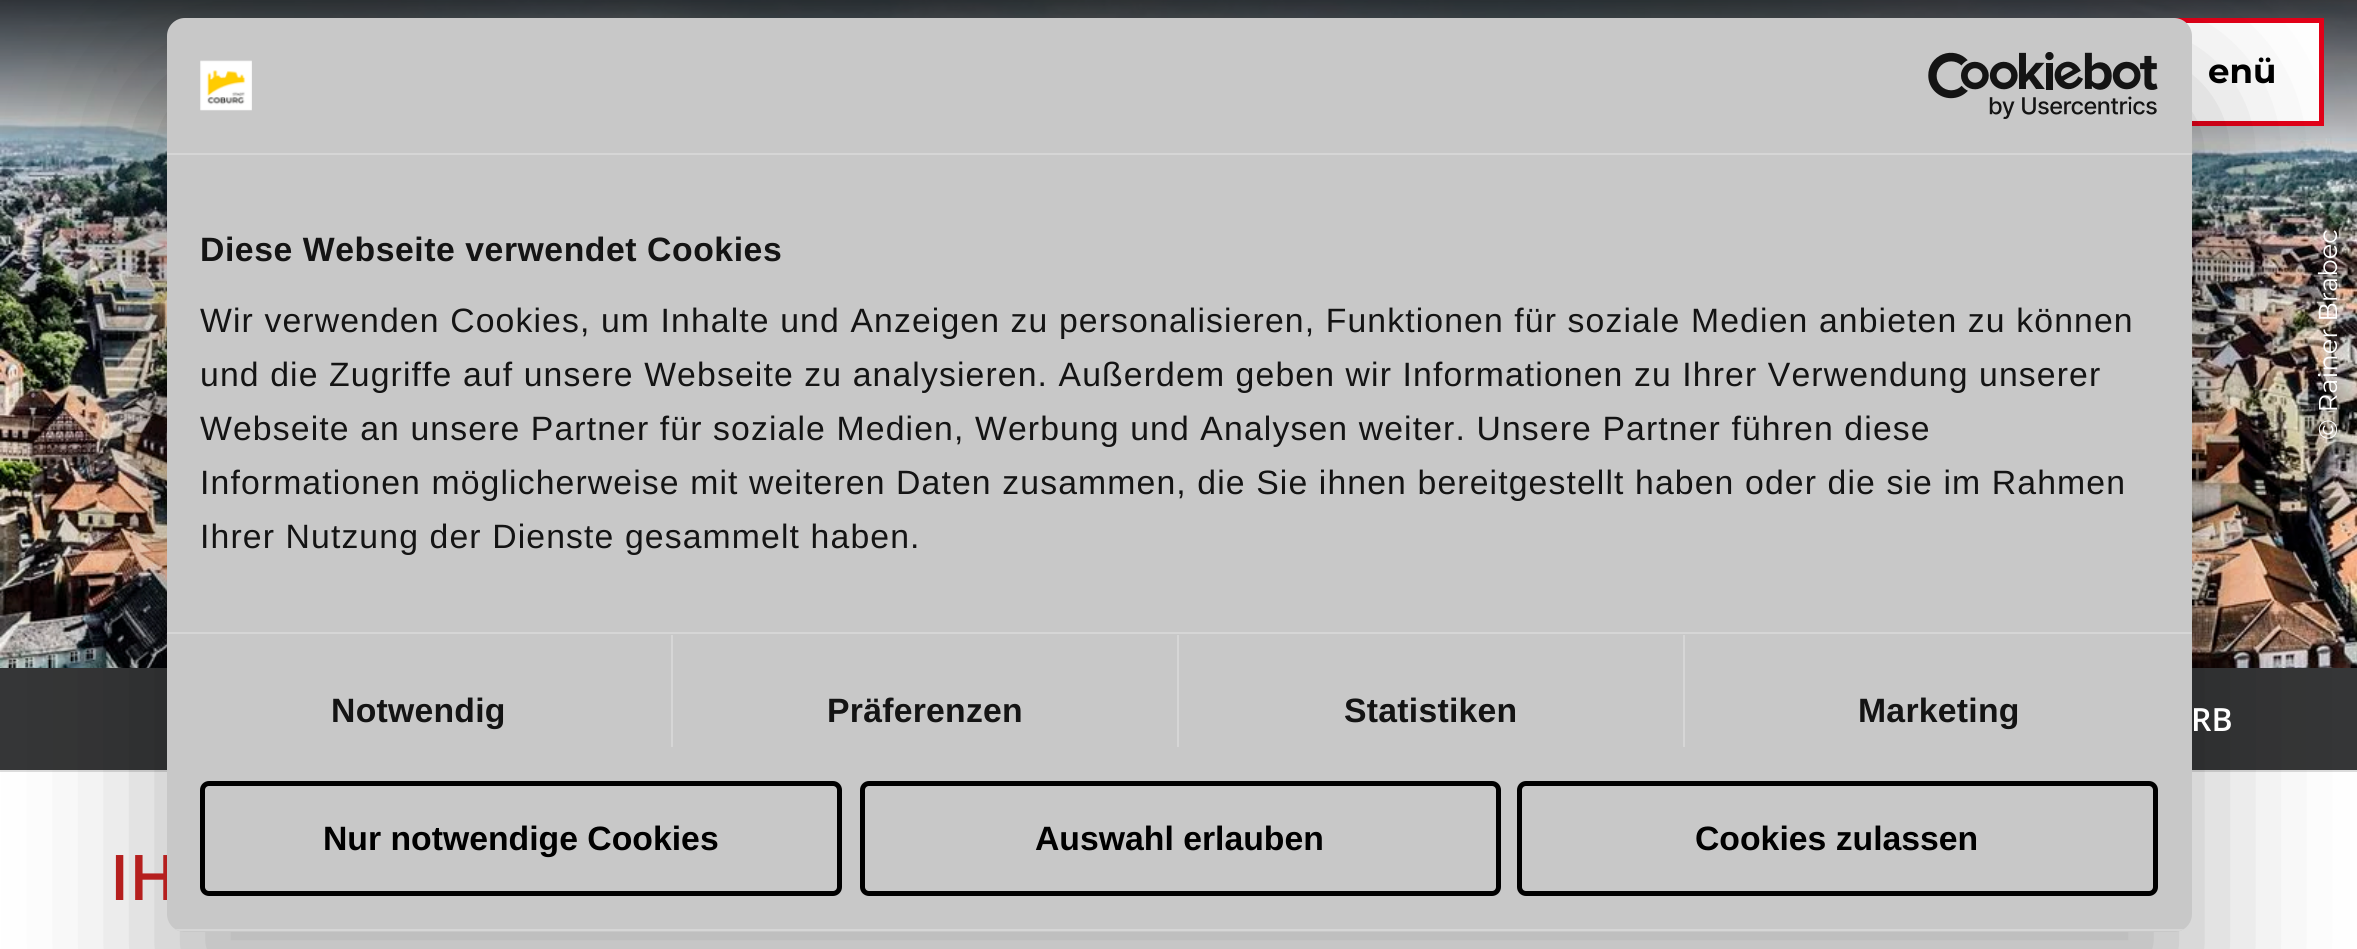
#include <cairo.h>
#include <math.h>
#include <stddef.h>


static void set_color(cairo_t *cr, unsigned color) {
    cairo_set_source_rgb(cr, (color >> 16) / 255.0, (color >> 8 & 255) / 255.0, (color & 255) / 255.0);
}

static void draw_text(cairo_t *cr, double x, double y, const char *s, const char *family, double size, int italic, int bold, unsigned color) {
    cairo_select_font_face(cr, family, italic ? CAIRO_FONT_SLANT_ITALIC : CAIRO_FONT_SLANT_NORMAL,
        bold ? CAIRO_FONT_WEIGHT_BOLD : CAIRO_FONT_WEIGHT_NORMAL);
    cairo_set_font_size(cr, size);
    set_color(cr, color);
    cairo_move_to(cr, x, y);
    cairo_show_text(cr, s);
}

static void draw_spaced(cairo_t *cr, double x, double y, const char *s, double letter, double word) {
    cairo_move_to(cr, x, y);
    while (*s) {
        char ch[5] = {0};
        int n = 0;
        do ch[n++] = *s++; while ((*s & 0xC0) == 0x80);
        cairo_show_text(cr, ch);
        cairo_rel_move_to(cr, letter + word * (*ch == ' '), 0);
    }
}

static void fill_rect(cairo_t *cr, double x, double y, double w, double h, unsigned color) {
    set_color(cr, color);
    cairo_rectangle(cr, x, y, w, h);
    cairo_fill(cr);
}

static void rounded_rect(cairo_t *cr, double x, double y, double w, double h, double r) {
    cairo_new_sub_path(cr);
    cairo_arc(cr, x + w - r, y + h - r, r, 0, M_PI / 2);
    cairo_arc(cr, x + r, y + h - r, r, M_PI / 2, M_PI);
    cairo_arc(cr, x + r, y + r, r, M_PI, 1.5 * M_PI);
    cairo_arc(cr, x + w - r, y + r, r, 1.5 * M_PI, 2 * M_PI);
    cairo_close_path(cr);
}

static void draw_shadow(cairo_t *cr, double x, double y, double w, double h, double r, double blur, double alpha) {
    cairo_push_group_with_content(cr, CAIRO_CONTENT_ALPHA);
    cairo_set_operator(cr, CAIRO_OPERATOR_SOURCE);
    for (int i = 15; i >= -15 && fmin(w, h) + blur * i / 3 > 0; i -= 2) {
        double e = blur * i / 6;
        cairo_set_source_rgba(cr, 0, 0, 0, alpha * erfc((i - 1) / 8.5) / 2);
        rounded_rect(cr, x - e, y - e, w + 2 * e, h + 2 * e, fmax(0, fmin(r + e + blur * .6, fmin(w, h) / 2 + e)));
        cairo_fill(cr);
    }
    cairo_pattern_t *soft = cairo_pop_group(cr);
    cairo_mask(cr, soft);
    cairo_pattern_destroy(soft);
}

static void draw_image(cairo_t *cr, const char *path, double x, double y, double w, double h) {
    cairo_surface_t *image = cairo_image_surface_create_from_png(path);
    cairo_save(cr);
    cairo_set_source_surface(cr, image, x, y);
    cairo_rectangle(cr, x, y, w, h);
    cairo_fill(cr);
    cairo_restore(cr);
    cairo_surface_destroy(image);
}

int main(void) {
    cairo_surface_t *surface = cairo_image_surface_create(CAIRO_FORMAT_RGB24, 2357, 949);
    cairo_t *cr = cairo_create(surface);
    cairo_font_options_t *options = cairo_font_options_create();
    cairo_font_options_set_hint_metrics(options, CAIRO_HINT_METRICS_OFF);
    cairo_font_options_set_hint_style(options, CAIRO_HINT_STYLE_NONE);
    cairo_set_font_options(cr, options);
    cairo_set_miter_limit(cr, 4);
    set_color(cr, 0xFFFFFF);
    cairo_paint(cr);
    draw_image(cr, "assets/img3.png", 0, 0, 2357, 668);
    fill_rect(cr, 2186, 23, 133, 98, 0xFFFFFF);
    cairo_rectangle(cr, 2050.5, 20.5, 271, 103);
    set_color(cr, 0xE30018);
    cairo_set_line_width(cr, 5);
    cairo_stroke(cr);
    fill_rect(cr, 0, 668, 2357, 102, 0x353637);
    fill_rect(cr, 0, 770, 2357, 2, 0xDDDDDD);
    set_color(cr, 0x000000);
    draw_shadow(cr, 167, 90, 2025, 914, 18, 76.5, 0.3);
    draw_text(cr, 110, 900, "IH", "Open Sans SemiBold", 63, 0, 0, 0xB51F1E);
    set_color(cr, 0xC8C8C8);
    rounded_rect(cr, 167, 18, 2025, 914, 18);
    cairo_fill(cr);
    fill_rect(cr, 167, 153, 2025, 2, 0xD6D6D6);
    draw_image(cr, "assets/img1.png", 200, 60, 52, 51);
    draw_image(cr, "assets/img2.png", 1928, 52, 230, 67);
    fill_rect(cr, 167, 632, 2025, 2, 0xD6D6D6);
    cairo_select_font_face(cr, "Liberation Sans", CAIRO_FONT_SLANT_NORMAL, CAIRO_FONT_WEIGHT_BOLD);
    cairo_set_font_size(cr, 33.75);
    set_color(cr, 0x141414);
    draw_spaced(cr, 200, 261, "Diese Webseite verwendet Cookies", 0.55, 0);
    cairo_select_font_face(cr, "Liberation Sans", CAIRO_FONT_SLANT_NORMAL, CAIRO_FONT_WEIGHT_NORMAL);
    draw_spaced(cr, 200, 332, "Wir verwenden Cookies, um Inhalte und Anzeigen zu personalisieren, Funktionen für soziale Medien anbieten zu können", 1.12, 0);
    draw_spaced(cr, 200, 386, "und die Zugriffe auf unsere Webseite zu analysieren. Außerdem geben wir Informationen zu Ihrer Verwendung unserer", 1.12, 0);
    draw_spaced(cr, 200, 440, "Webseite an unsere Partner für soziale Medien, Werbung und Analysen weiter. Unsere Partner führen diese", 1.12, 0);
    draw_spaced(cr, 200, 494, "Informationen möglicherweise mit weiteren Daten zusammen, die Sie ihnen bereitgestellt haben oder die sie im Rahmen", 1.12, 0);
    draw_spaced(cr, 200, 548, "Ihrer Nutzung der Dienste gesammelt haben.", 1.12, 0);
    fill_rect(cr, 671, 635, 2, 112, 0xD6D6D6);
    cairo_select_font_face(cr, "Liberation Sans", CAIRO_FONT_SLANT_NORMAL, CAIRO_FONT_WEIGHT_BOLD);
    set_color(cr, 0x141414);
    draw_spaced(cr, 331, 722, "Notwendig", 0.25, 0);
    fill_rect(cr, 1177, 635, 2, 112, 0xD6D6D6);
    set_color(cr, 0x141414);
    draw_spaced(cr, 827, 722, "Präferenzen", 0.25, 0);
    fill_rect(cr, 1683, 635, 2, 112, 0xD6D6D6);
    set_color(cr, 0x141414);
    draw_spaced(cr, 1344, 722, "Statistiken", 0.25, 0);
    draw_spaced(cr, 1858, 722, "Marketing", 0.25, 0);
    cairo_save(cr);
    rounded_rect(cr, 167, 18, 2025, 914, 18);
    cairo_clip(cr);
    fill_rect(cr, 167, 929, 2025, 2, 0xD6D6D6);
    cairo_restore(cr);
    rounded_rect(cr, 202.5, 783.5, 637, 110, 6.5);
    set_color(cr, 0x000000);
    cairo_stroke(cr);
    draw_text(cr, 323, 850, "Nur notwendige Cookies", "Liberation Sans", 33.75, 0, 1, 0x000000);
    rounded_rect(cr, 862.5, 783.5, 636, 110, 6.5);
    cairo_stroke(cr);
    draw_text(cr, 1035, 850, "Auswahl erlauben", "Liberation Sans", 33.75, 0, 1, 0x000000);
    rounded_rect(cr, 1519.5, 783.5, 636, 110, 6.5);
    cairo_stroke(cr);
    draw_text(cr, 1695, 850, "Cookies zulassen", "Liberation Sans", 33.75, 0, 1, 0x000000);
    draw_text(cr, 2208, 83, "enü", "Montserrat", 34, 0, 1, 0x000000);
    cairo_save(cr);
    cairo_translate(cr, 2337, 440);
    cairo_rotate(cr, -90 * M_PI / 180);
    draw_text(cr, 0, 0, "© Rainer Brabec", "Montserrat", 25.75, 0, 0, 0xFFFFFF);
    cairo_restore(cr);
    draw_text(cr, 2191, 731, "RB", "Open Sans SemiBold", 32, 0, 0, 0xFFFFFF);
    cairo_surface_write_to_png(surface, "output.png");
    cairo_font_options_destroy(options);
    cairo_destroy(cr);
    cairo_surface_destroy(surface);
    return 0;
}
